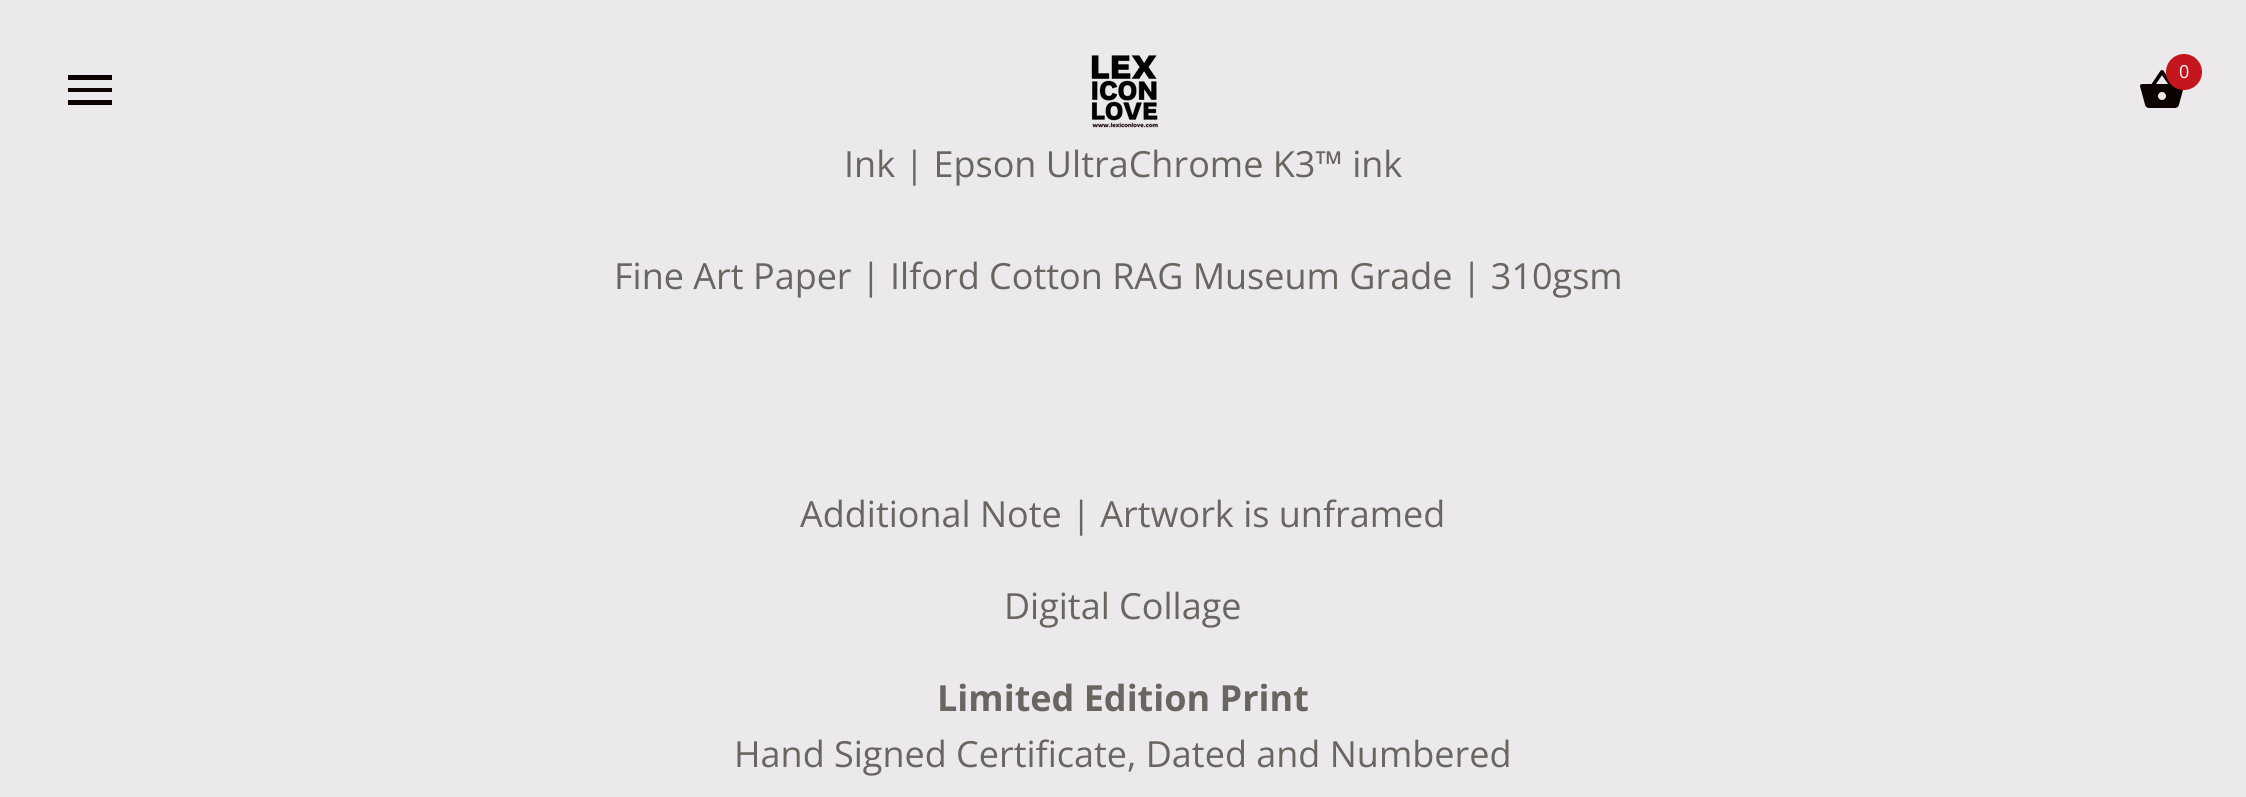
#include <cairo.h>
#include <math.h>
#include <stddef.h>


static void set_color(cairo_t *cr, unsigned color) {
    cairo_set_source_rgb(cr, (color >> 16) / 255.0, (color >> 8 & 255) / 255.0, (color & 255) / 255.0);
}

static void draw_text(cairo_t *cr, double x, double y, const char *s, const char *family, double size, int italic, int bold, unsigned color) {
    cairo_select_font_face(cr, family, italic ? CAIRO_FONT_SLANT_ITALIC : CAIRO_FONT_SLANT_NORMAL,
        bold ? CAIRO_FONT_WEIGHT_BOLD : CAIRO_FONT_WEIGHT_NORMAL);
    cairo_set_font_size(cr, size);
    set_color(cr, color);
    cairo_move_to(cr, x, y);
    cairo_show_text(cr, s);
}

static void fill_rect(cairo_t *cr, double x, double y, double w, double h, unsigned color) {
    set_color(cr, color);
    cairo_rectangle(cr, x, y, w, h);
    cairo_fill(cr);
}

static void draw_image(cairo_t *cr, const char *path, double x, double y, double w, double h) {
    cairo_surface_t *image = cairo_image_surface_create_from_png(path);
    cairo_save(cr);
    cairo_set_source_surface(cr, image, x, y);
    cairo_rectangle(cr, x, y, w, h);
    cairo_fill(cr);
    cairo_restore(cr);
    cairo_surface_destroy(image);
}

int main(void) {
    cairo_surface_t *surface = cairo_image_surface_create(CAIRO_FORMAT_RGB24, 2246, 797);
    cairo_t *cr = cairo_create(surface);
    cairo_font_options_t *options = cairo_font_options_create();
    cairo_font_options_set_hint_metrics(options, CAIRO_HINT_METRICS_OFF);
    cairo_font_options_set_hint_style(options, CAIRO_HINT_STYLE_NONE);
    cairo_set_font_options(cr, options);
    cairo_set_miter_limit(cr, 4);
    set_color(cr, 0xEBE9EC);
    cairo_paint(cr);
    draw_image(cr, "assets/img1.png", 1091, 55, 67, 73);
    draw_image(cr, "assets/img2.png", 2140, 70, 44, 38);
    set_color(cr, 0xC4161C);
    cairo_arc(cr, 2184, 72, 18, 0, 2 * M_PI);
    cairo_fill(cr);
    draw_text(cr, 2179, 78, "0", "Open Sans", 18, 0, 0, 0xFFFFFF);
    fill_rect(cr, 68, 75, 44, 5, 0x0C0101);
    fill_rect(cr, 68, 88, 44, 4, 0x0C0101);
    fill_rect(cr, 68, 100, 44, 5, 0x0C0101);
    draw_text(cr, 844, 177, "Ink | Epson UltraChrome K3™ ink", "Open Sans", 36, 0, 0, 0x6A6561);
    draw_text(cr, 614, 289, "Fine Art Paper | Ilford Cotton RAG Museum Grade | 310gsm", "Open Sans", 36, 0, 0, 0x6A6561);
    draw_text(cr, 800, 527, "Additional Note | Artwork is unframed", "Open Sans", 36, 0, 0, 0x6A6561);
    draw_text(cr, 1004, 619, "Digital Collage", "Open Sans", 36, 0, 0, 0x6A6561);
    draw_text(cr, 937, 711, "Limited Edition Print", "Open Sans", 36, 0, 1, 0x6A6561);
    draw_text(cr, 734, 767, "Hand Signed Certificate, Dated and Numbered", "Open Sans", 36, 0, 0, 0x6A6561);
    cairo_surface_write_to_png(surface, "output.png");
    cairo_font_options_destroy(options);
    cairo_destroy(cr);
    cairo_surface_destroy(surface);
    return 0;
}
